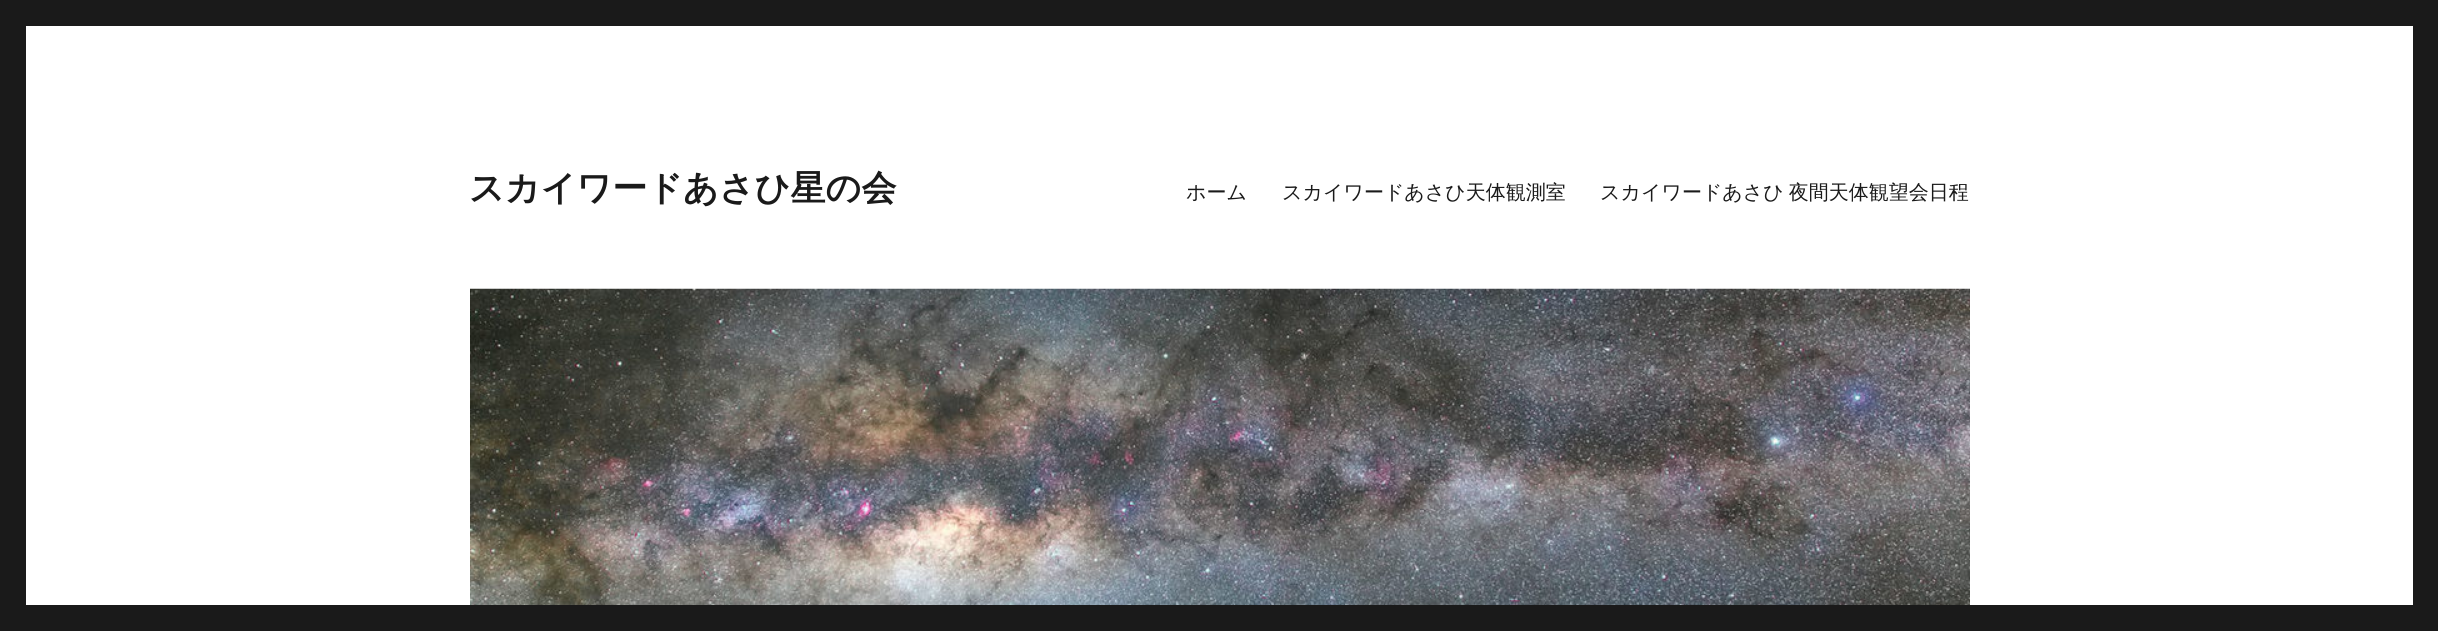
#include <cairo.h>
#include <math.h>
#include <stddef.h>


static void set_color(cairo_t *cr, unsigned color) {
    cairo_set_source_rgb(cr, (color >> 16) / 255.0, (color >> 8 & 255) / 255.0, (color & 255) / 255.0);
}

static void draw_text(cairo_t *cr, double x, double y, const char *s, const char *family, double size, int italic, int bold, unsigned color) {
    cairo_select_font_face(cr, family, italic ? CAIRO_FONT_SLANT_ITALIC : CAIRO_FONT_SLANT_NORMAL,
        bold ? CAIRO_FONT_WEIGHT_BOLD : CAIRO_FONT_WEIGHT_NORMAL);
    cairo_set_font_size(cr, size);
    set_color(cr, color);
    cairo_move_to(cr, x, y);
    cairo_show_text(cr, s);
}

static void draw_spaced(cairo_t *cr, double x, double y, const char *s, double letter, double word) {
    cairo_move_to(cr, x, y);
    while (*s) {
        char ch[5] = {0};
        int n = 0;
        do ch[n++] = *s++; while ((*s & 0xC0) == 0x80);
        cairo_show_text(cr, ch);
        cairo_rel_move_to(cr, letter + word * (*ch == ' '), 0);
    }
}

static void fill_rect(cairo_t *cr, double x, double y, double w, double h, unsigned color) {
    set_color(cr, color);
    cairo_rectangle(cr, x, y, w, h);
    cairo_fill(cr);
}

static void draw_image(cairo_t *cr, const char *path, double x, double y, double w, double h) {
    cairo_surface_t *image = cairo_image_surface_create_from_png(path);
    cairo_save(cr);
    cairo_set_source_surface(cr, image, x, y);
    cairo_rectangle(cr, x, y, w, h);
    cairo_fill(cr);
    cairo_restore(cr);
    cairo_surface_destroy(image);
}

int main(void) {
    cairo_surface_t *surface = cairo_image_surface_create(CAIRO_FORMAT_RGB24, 2438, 631);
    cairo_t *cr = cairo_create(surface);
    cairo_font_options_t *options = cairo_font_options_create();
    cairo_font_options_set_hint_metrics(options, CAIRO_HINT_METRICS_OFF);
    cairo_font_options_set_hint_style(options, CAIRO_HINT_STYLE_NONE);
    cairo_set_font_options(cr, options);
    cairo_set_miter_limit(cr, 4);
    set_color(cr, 0x1A1A1A);
    cairo_paint(cr);
    fill_rect(cr, 26, 26, 2387, 579, 0xFFFFFF);
    draw_text(cr, 469, 200, "スカイワードあさひ星の会", "WenQuanYi Zen Hei", 35, 0, 1, 0x1A1A1A);
    draw_text(cr, 1186, 199, "ホーム", "WenQuanYi Zen Hei Medium", 20, 0, 0, 0x1A1A1A);
    draw_text(cr, 1282, 199, "スカイワードあさひ天体観測室", "WenQuanYi Zen Hei Medium", 20, 0, 0, 0x1A1A1A);
    draw_spaced(cr, 1600, 199, "スカイワードあさひ 夜間天体観望会日程", 0, -1);
    draw_image(cr, "assets/img1.png", 470, 288, 1500, 317);
    cairo_surface_write_to_png(surface, "output.png");
    cairo_font_options_destroy(options);
    cairo_destroy(cr);
    cairo_surface_destroy(surface);
    return 0;
}
